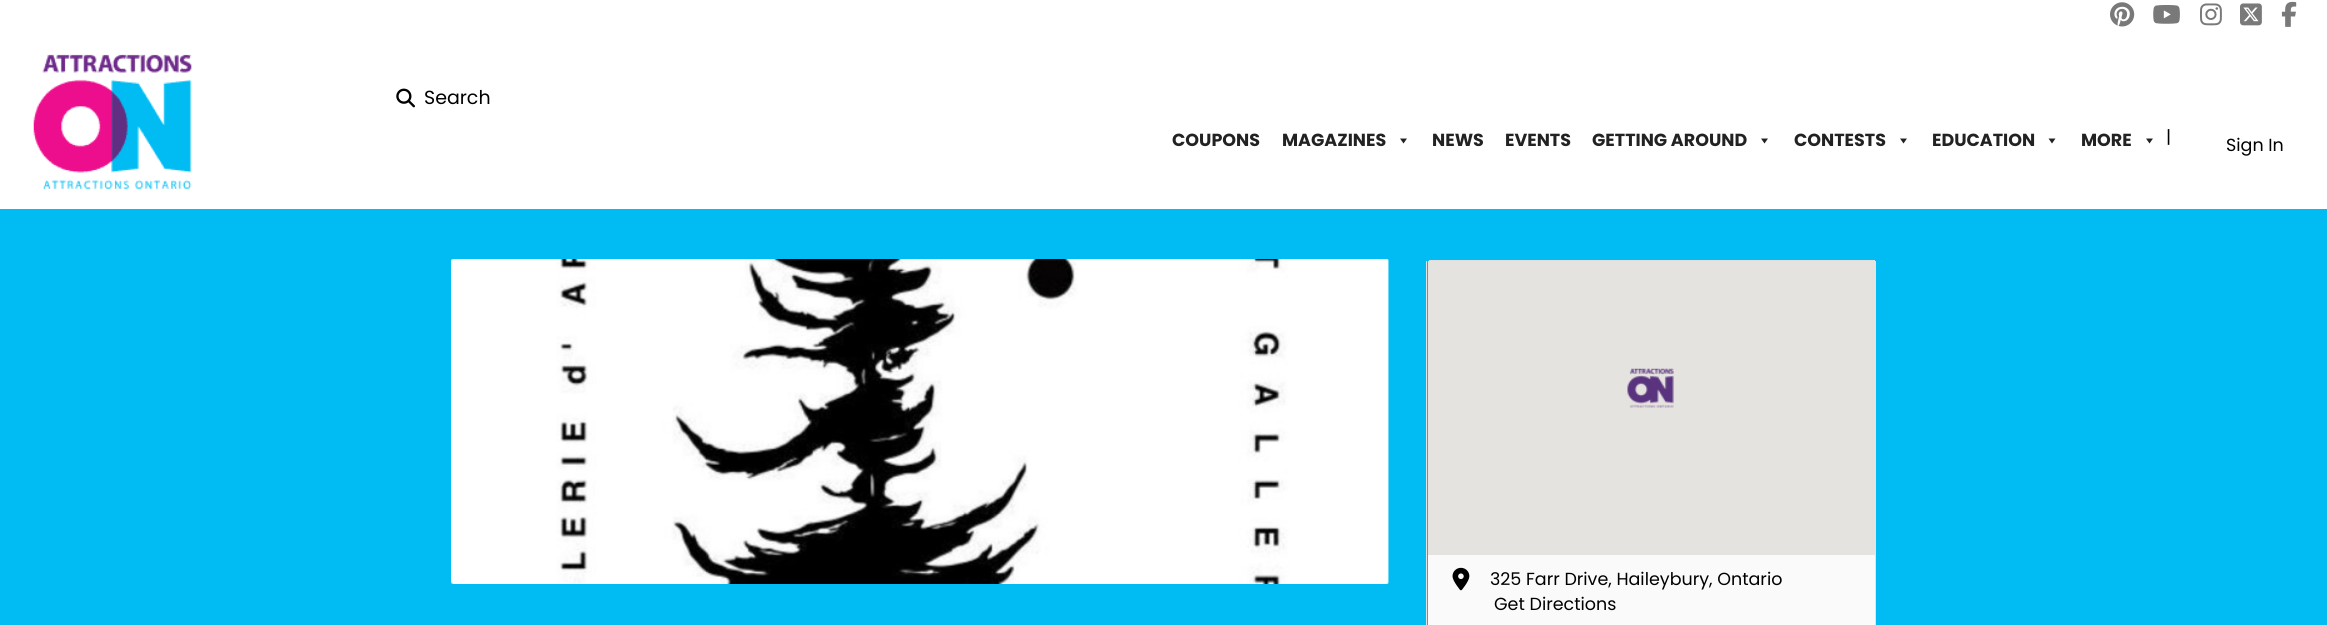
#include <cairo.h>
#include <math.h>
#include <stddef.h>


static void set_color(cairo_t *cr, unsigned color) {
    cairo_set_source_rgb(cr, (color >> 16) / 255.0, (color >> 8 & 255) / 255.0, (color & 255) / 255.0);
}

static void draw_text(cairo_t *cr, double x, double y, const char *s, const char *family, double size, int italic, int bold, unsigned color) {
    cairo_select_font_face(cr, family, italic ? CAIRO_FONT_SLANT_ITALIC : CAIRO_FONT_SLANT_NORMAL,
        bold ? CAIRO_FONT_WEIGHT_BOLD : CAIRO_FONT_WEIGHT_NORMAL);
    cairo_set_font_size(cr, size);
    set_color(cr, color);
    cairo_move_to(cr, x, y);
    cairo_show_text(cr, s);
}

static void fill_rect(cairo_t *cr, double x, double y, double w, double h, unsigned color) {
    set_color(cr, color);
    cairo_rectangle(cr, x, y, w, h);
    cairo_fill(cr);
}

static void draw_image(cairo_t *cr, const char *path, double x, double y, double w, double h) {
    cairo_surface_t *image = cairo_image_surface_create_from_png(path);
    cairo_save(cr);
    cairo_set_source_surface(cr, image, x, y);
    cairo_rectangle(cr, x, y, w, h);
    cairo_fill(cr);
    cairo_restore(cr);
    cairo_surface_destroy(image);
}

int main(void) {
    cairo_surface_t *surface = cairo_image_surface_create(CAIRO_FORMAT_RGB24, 2327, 625);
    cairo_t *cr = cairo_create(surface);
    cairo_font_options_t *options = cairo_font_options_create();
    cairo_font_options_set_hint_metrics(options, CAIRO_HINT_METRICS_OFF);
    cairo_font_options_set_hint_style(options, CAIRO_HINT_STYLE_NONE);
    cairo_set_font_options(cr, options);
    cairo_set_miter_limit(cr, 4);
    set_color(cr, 0xFFFFFF);
    cairo_paint(cr);
    draw_image(cr, "assets/img1.png", 2110, 2, 25, 25);
    draw_image(cr, "assets/img2.png", 2153, 5, 27, 19);
    draw_image(cr, "assets/img3.png", 2200, 3, 22, 23);
    draw_image(cr, "assets/img4.png", 2240, 3, 22, 23);
    draw_image(cr, "assets/img5.png", 2281, 1, 16, 26);
    draw_image(cr, "assets/img6.png", 33, 54, 159, 135);
    draw_image(cr, "assets/img7.png", 396, 88, 19, 20);
    draw_text(cr, 424, 104, "Search", "Poppins", 19, 0, 0, 0x000000);
    draw_text(cr, 1172, 146, "COUPONS", "Poppins", 17.5, 0, 1, 0x222222);
    draw_text(cr, 1282, 146, "MAGAZINES", "Poppins", 17.5, 0, 1, 0x222222);
    cairo_new_path(cr);
    cairo_move_to(cr, 1407, 138.5);
    cairo_line_to(cr, 1403.5, 143.5);
    cairo_line_to(cr, 1400, 138.5);
    cairo_close_path(cr);
    cairo_fill(cr);
    draw_text(cr, 1432, 146, "NEWS", "Poppins", 17.5, 0, 1, 0x222222);
    draw_text(cr, 1505, 146, "EVENTS", "Poppins", 17.5, 0, 1, 0x222222);
    draw_text(cr, 1592, 146, "GETTING AROUND", "Poppins", 17.5, 0, 1, 0x222222);
    cairo_new_path(cr);
    cairo_move_to(cr, 1768, 138.5);
    cairo_line_to(cr, 1764.5, 143.5);
    cairo_line_to(cr, 1761, 138.5);
    cairo_close_path(cr);
    cairo_fill(cr);
    draw_text(cr, 1794, 146, "CONTESTS", "Poppins", 17.5, 0, 1, 0x222222);
    cairo_new_path(cr);
    cairo_move_to(cr, 1907, 138.5);
    cairo_line_to(cr, 1903.5, 143.5);
    cairo_line_to(cr, 1900, 138.5);
    cairo_close_path(cr);
    cairo_fill(cr);
    draw_text(cr, 1932, 146, "EDUCATION", "Poppins", 17.5, 0, 1, 0x222222);
    cairo_new_path(cr);
    cairo_move_to(cr, 2055.5, 138.5);
    cairo_line_to(cr, 2052, 143.5);
    cairo_line_to(cr, 2048.5, 138.5);
    cairo_close_path(cr);
    cairo_fill(cr);
    draw_text(cr, 2081, 146, "MORE", "Poppins", 17.5, 0, 1, 0x222222);
    cairo_new_path(cr);
    cairo_move_to(cr, 2153, 138.5);
    cairo_line_to(cr, 2149.5, 143.5);
    cairo_line_to(cr, 2146, 138.5);
    cairo_close_path(cr);
    cairo_fill(cr);
    draw_text(cr, 2166, 143, "|", "Poppins", 17.5, 0, 0, 0x000000);
    draw_text(cr, 2226, 151, "Sign In", "Poppins", 17.5, 0, 0, 0x000000);
    fill_rect(cr, 0, 209, 2327, 416, 0x00BCF3);
    draw_image(cr, "assets/img8.png", 451, 259, 938, 325);
    fill_rect(cr, 1429, 260, 446, 1, 0xDEDEDE);
    fill_rect(cr, 1428, 261, 447, 294, 0xE5E3DF);
    draw_image(cr, "assets/img9.png", 1627, 368, 47, 40);
    fill_rect(cr, 1875, 261, 1, 364, 0xE3E3E3);
    fill_rect(cr, 1426, 261, 1, 364, 0xE3E3E3);
    fill_rect(cr, 1428, 555, 447, 70, 0xFAFAFA);
    draw_image(cr, "assets/img10.png", 1452, 567, 18, 24);
    draw_text(cr, 1490, 585, "325 Farr Drive, Haileybury, Ontario", "Poppins", 17.5, 0, 0, 0x000000);
    draw_text(cr, 1494, 610, "Get Directions", "Poppins", 17.5, 0, 0, 0x000000);
    cairo_surface_write_to_png(surface, "output.png");
    cairo_font_options_destroy(options);
    cairo_destroy(cr);
    cairo_surface_destroy(surface);
    return 0;
}
